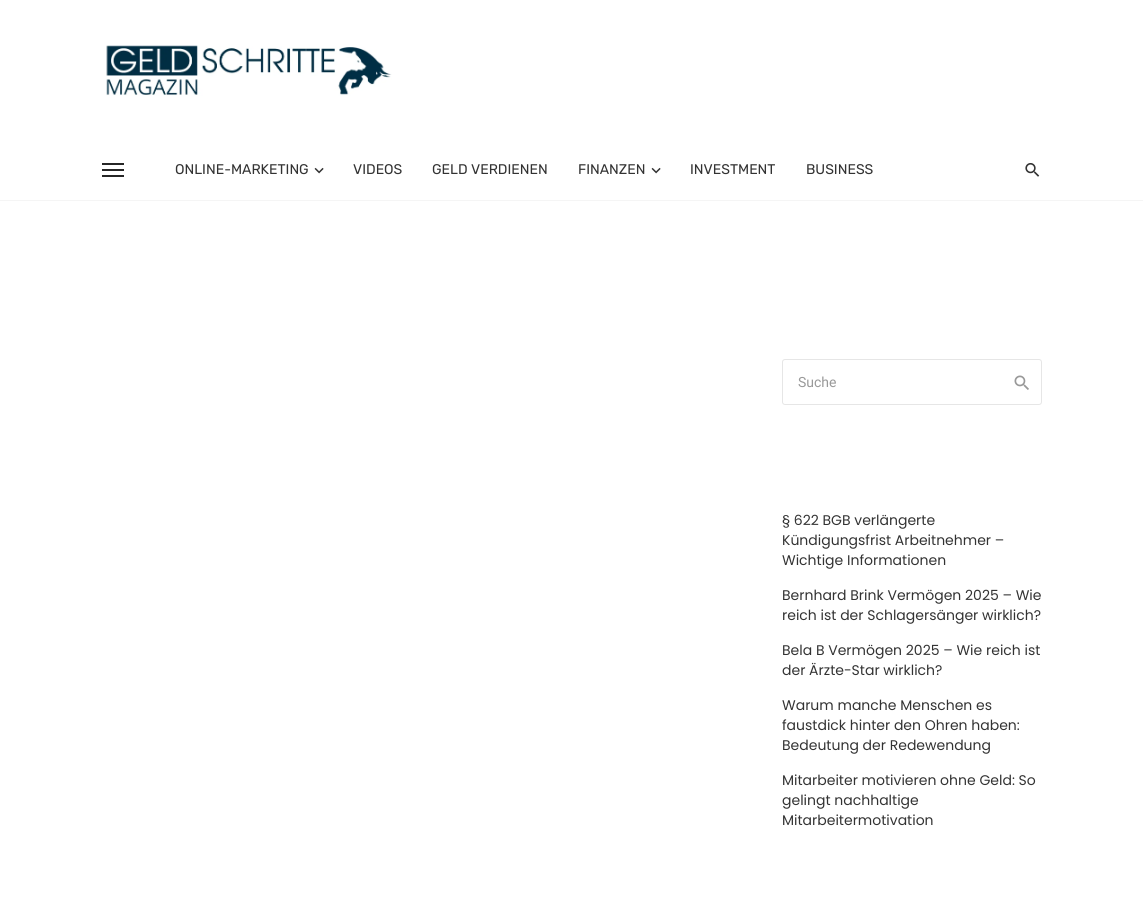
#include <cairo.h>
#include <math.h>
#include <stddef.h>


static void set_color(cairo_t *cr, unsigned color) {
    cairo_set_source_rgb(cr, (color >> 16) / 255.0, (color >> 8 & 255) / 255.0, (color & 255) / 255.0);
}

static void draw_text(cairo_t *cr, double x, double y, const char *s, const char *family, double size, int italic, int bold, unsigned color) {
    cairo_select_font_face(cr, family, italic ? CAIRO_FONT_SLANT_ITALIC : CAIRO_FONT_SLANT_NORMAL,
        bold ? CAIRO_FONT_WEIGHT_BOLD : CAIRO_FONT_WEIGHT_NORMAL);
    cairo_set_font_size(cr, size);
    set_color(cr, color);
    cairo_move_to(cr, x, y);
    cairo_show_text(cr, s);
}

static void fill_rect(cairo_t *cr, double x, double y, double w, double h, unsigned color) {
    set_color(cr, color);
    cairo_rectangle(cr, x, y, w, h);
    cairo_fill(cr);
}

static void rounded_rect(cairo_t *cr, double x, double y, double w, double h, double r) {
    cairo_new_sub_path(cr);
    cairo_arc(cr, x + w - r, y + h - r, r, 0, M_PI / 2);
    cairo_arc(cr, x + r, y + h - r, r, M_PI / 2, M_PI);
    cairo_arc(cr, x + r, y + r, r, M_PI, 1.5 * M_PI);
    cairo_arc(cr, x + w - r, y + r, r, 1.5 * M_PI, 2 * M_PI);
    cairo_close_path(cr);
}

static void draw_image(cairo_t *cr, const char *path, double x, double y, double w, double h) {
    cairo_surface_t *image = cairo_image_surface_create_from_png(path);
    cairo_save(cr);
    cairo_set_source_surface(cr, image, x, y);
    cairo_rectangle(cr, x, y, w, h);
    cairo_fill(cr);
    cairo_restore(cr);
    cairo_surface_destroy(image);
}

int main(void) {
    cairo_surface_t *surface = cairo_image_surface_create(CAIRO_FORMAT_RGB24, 1143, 904);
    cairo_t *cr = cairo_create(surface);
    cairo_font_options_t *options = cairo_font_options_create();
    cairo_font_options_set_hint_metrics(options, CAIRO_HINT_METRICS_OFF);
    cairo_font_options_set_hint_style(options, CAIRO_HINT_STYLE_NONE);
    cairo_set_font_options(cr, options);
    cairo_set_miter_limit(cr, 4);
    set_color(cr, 0xFFFFFF);
    cairo_paint(cr);
    fill_rect(cr, 0, 200, 1143, 1, 0xF5F5F5);
    draw_image(cr, "assets/img1.png", 106, 45, 286, 51);
    fill_rect(cr, 102, 169, 22, 2, 0x262626);
    fill_rect(cr, 102, 163, 22, 2, 0x262626);
    fill_rect(cr, 102, 175, 22, 2, 0x262626);
    draw_text(cr, 175, 174, "ONLINE-MARKETING", "Rubik", 14, 0, 0, 0x333333);
    draw_image(cr, "assets/img2.png", 314, 167, 10, 7);
    draw_text(cr, 353, 174, "VIDEOS", "Rubik", 14, 0, 0, 0x333333);
    draw_text(cr, 432, 174, "GELD VERDIENEN", "Rubik", 14, 0, 0, 0x333333);
    draw_text(cr, 578, 174, "FINANZEN", "Rubik", 14, 0, 0, 0x333333);
    draw_image(cr, "assets/img2.png", 651, 167, 10, 7);
    draw_text(cr, 690, 174, "INVESTMENT", "Rubik", 14, 0, 0, 0x333333);
    draw_text(cr, 806, 174, "BUSINESS", "Rubik", 14, 0, 0, 0x333333);
    draw_image(cr, "assets/img3.png", 1025, 163, 15, 14);
    rounded_rect(cr, 782.5, 359.5, 259, 45, 2.5);
    set_color(cr, 0xE6E6E6);
    cairo_set_line_width(cr, 1);
    cairo_stroke(cr);
    draw_text(cr, 798, 387, "Suche", "Roboto", 14, 0, 0, 0x999999);
    draw_image(cr, "assets/img4.png", 1014, 375, 15, 15);
    draw_text(cr, 782, 525, "§ 622 BGB verlängerte", "Poppins", 14, 0, 0, 0x333333);
    draw_text(cr, 782, 545, "Kündigungsfrist Arbeitnehmer –", "Poppins", 14, 0, 0, 0x333333);
    draw_text(cr, 782, 565, "Wichtige Informationen", "Poppins", 14, 0, 0, 0x333333);
    draw_text(cr, 782, 600, "Bernhard Brink Vermögen 2025 – Wie", "Poppins", 14, 0, 0, 0x333333);
    draw_text(cr, 782, 620, "reich ist der Schlagersänger wirklich?", "Poppins", 14, 0, 0, 0x333333);
    draw_text(cr, 782, 655, "Bela B Vermögen 2025 – Wie reich ist", "Poppins", 14, 0, 0, 0x333333);
    draw_text(cr, 782, 675, "der Ärzte-Star wirklich?", "Poppins", 14, 0, 0, 0x333333);
    draw_text(cr, 782, 710, "Warum manche Menschen es", "Poppins", 14, 0, 0, 0x333333);
    draw_text(cr, 782, 730, "faustdick hinter den Ohren haben:", "Poppins", 14, 0, 0, 0x333333);
    draw_text(cr, 782, 750, "Bedeutung der Redewendung", "Poppins", 14, 0, 0, 0x333333);
    draw_text(cr, 782, 785, "Mitarbeiter motivieren ohne Geld: So", "Poppins", 14, 0, 0, 0x333333);
    draw_text(cr, 782, 805, "gelingt nachhaltige", "Poppins", 14, 0, 0, 0x333333);
    draw_text(cr, 782, 825, "Mitarbeitermotivation", "Poppins", 14, 0, 0, 0x333333);
    cairo_surface_write_to_png(surface, "output.png");
    cairo_font_options_destroy(options);
    cairo_destroy(cr);
    cairo_surface_destroy(surface);
    return 0;
}
